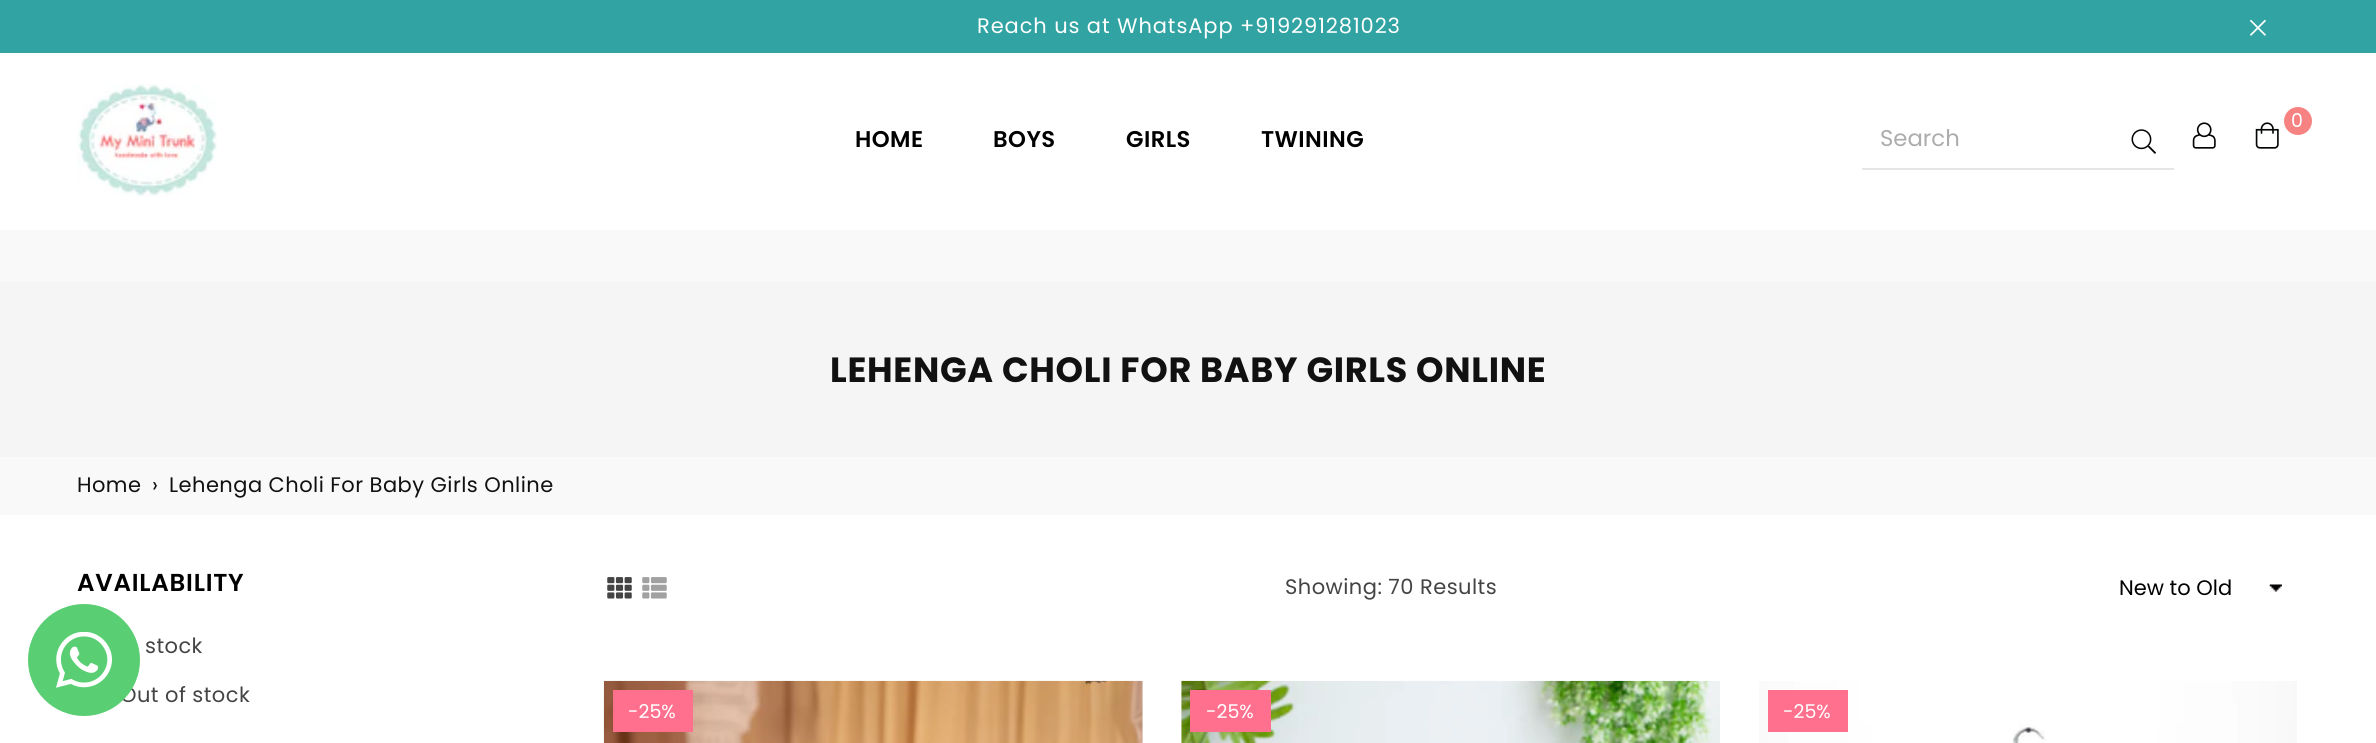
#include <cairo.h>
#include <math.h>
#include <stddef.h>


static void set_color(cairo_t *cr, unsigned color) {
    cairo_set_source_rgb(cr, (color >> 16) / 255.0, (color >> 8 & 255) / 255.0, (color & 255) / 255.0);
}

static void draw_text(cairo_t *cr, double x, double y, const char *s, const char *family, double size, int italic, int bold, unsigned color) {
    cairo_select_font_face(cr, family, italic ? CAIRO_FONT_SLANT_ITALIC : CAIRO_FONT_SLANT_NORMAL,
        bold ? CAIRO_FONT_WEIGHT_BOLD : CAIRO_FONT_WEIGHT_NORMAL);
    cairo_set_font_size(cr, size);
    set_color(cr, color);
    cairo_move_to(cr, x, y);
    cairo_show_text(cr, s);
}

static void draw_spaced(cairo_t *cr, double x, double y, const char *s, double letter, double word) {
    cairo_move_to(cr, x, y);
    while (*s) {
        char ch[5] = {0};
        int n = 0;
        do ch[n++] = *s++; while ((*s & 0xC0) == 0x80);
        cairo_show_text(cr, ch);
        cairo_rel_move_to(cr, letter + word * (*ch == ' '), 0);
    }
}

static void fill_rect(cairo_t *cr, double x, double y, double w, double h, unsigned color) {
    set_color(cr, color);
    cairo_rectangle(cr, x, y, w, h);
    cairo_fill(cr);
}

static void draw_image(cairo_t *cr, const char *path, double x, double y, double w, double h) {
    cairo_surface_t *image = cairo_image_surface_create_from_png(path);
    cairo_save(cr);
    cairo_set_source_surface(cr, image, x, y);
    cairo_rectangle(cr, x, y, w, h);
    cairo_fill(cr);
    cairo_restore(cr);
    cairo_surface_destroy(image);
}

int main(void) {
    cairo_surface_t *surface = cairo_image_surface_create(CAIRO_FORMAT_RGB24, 2376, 743);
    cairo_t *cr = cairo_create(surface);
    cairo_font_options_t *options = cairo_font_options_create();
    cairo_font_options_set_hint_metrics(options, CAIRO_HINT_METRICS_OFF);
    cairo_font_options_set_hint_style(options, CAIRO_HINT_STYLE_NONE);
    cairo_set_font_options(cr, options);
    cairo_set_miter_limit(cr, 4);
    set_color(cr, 0xFFFFFF);
    cairo_paint(cr);
    fill_rect(cr, 0, 0, 2376, 53, 0x31A3A3);
    cairo_select_font_face(cr, "Poppins", CAIRO_FONT_SLANT_NORMAL, CAIRO_FONT_WEIGHT_NORMAL);
    cairo_set_font_size(cr, 21);
    set_color(cr, 0xFFFFFF);
    draw_spaced(cr, 977, 33, "Reach us at WhatsApp +919291281023", 0.9, 0);
    draw_image(cr, "assets/img1.png", 2250, 19, 16, 17);
    draw_image(cr, "assets/img2.png", 77, 84, 140, 113);
    cairo_select_font_face(cr, "Poppins SemiBold", CAIRO_FONT_SLANT_NORMAL, CAIRO_FONT_WEIGHT_NORMAL);
    cairo_set_font_size(cr, 22.75);
    set_color(cr, 0x000000);
    draw_spaced(cr, 855, 147, "HOME", 0.45, 0);
    draw_spaced(cr, 993, 147, "BOYS", 0.45, 0);
    draw_spaced(cr, 1126, 147, "GIRLS", 0.45, 0);
    draw_spaced(cr, 1261, 147, "TWINING", 0.45, 0);
    set_color(cr, 0xF78282);
    cairo_new_path(cr);
    cairo_arc(cr, 2298, 121, 14, 0, 2 * M_PI);
    cairo_fill(cr);
    cairo_select_font_face(cr, "Poppins", CAIRO_FONT_SLANT_NORMAL, CAIRO_FONT_WEIGHT_NORMAL);
    cairo_set_font_size(cr, 19);
    set_color(cr, 0xFFFFFF);
    draw_spaced(cr, 2291, 127, "0", 0.45, 0);
    draw_image(cr, "assets/img3.png", 2255, 122, 24, 27);
    fill_rect(cr, 1862, 168, 312, 2, 0xE6E6E6);
    draw_text(cr, 1880, 146, "Search", "Poppins", 22.75, 0, 0, 0xACACAC);
    draw_image(cr, "assets/img4.png", 2131, 129, 25, 25);
    draw_image(cr, "assets/img5.png", 2192, 122, 24, 27);
    fill_rect(cr, 0, 230, 2376, 52, 0xF9F9F9);
    fill_rect(cr, 0, 282, 2376, 175, 0xF5F5F5);
    cairo_select_font_face(cr, "Poppins", CAIRO_FONT_SLANT_NORMAL, CAIRO_FONT_WEIGHT_BOLD);
    cairo_set_font_size(cr, 35);
    set_color(cr, 0x111111);
    draw_spaced(cr, 830, 382, "LEHENGA CHOLI FOR BABY GIRLS ONLINE", 0.7, 0);
    fill_rect(cr, 0, 457, 2376, 58, 0xF9F9F9);
    cairo_select_font_face(cr, "Poppins", CAIRO_FONT_SLANT_NORMAL, CAIRO_FONT_WEIGHT_NORMAL);
    cairo_set_font_size(cr, 21);
    set_color(cr, 0x111111);
    draw_spaced(cr, 77, 492, "Home", 0.45, 0);
    draw_spaced(cr, 152, 492, "›", 0.45, 0);
    draw_spaced(cr, 169, 492, "Lehenga Choli For Baby Girls Online", 0.45, 0);
    cairo_select_font_face(cr, "Poppins SemiBold", CAIRO_FONT_SLANT_NORMAL, CAIRO_FONT_WEIGHT_NORMAL);
    cairo_set_font_size(cr, 24.5);
    set_color(cr, 0x000000);
    draw_spaced(cr, 77, 591, "AVAILABILITY", 0.75, 0);
    cairo_select_font_face(cr, "Poppins", CAIRO_FONT_SLANT_NORMAL, CAIRO_FONT_WEIGHT_NORMAL);
    cairo_set_font_size(cr, 21);
    set_color(cr, 0x444444);
    draw_spaced(cr, 145, 653, "stock", 0.45, 0);
    draw_spaced(cr, 120, 702, "Out of stock", 0.45, 0);
    draw_image(cr, "assets/img6.png", 607, 577, 25, 22);
    draw_image(cr, "assets/img7.png", 642, 577, 25, 22);
    draw_spaced(cr, 1285, 594, "Showing: 70 Results", 0.45, 0);
    draw_image(cr, "assets/img8.png", 2269, 584, 13, 8);
    draw_text(cr, 2119, 595, "New to Old", "Poppins", 21, 0, 0, 0x000000);
    draw_image(cr, "assets/img9.png", 603, 680, 540, 63);
    fill_rect(cr, 613, 690, 80, 42, 0xFF708E);
    draw_text(cr, 628, 718, "-25%", "Poppins", 19, 0, 0, 0xFFFFFF);
    draw_image(cr, "assets/img10.png", 1181, 680, 539, 63);
    fill_rect(cr, 1190, 690, 81, 42, 0xFF708E);
    draw_text(cr, 1206, 718, "-25%", "Poppins", 19, 0, 0, 0xFFFFFF);
    draw_image(cr, "assets/img11.png", 1759, 681, 538, 62);
    fill_rect(cr, 1768, 690, 80, 42, 0xFF708E);
    draw_text(cr, 1783, 718, "-25%", "Poppins", 19, 0, 0, 0xFFFFFF);
    set_color(cr, 0x59CE72);
    cairo_new_path(cr);
    cairo_arc(cr, 84, 660, 56, 0, 2 * M_PI);
    cairo_fill(cr);
    draw_image(cr, "assets/img12.png", 56, 632, 56, 56);
    cairo_surface_write_to_png(surface, "output.png");
    cairo_font_options_destroy(options);
    cairo_destroy(cr);
    cairo_surface_destroy(surface);
    return 0;
}
